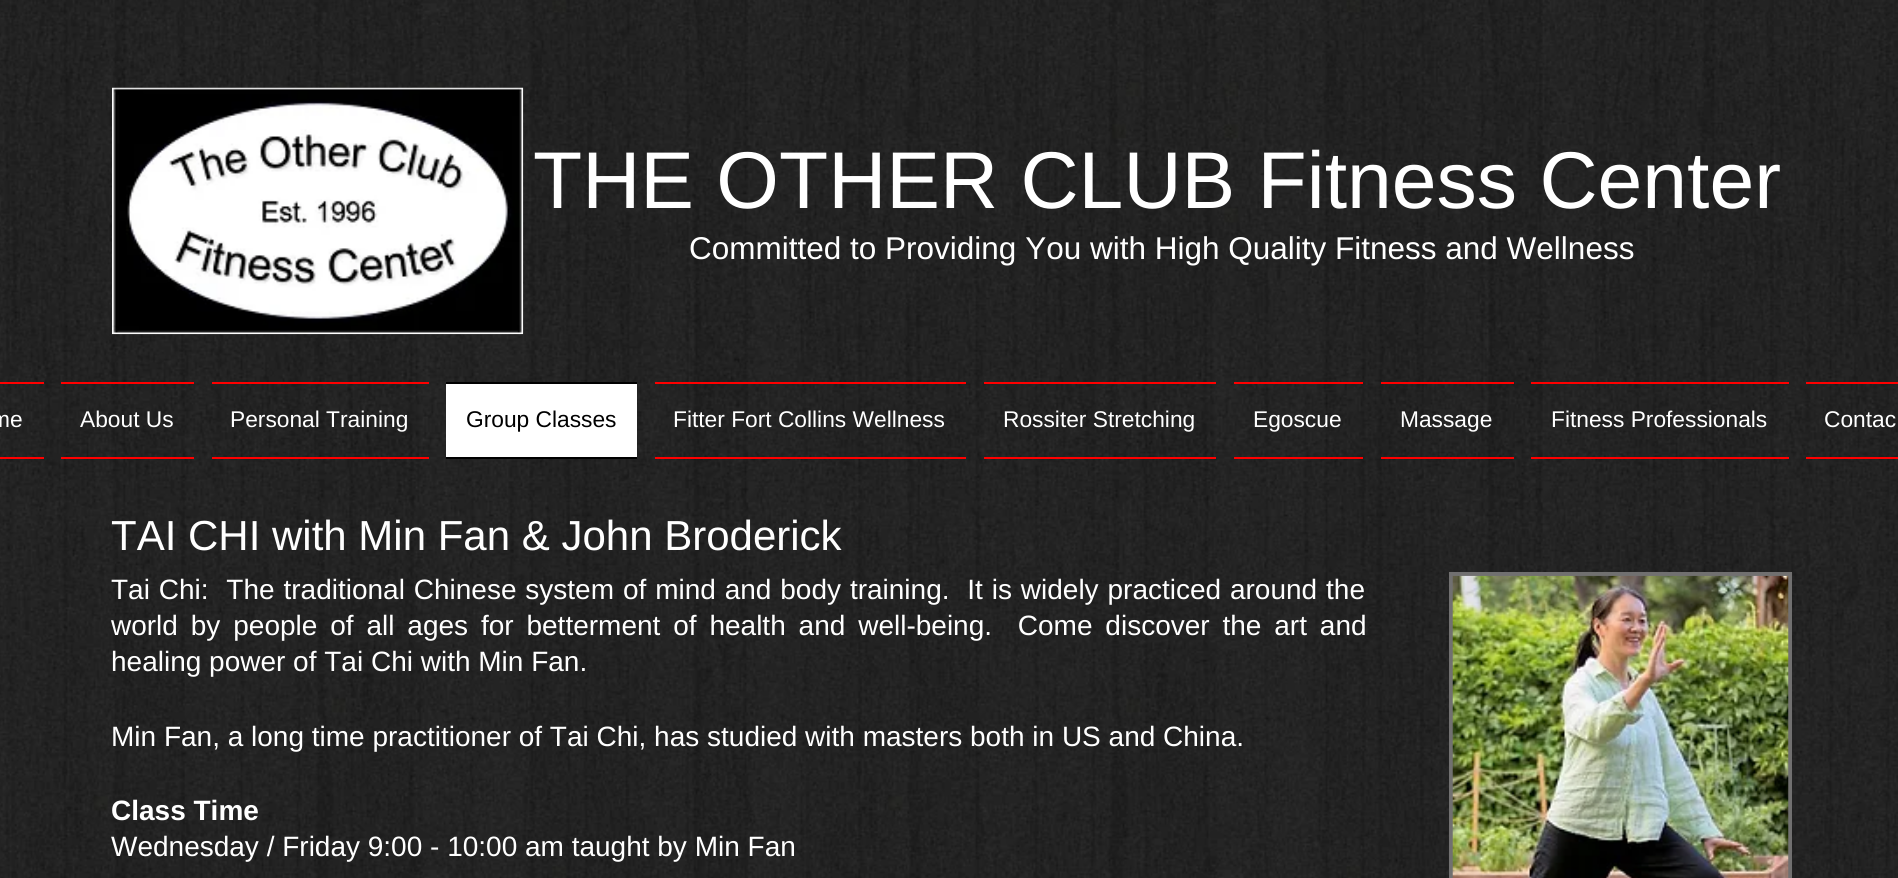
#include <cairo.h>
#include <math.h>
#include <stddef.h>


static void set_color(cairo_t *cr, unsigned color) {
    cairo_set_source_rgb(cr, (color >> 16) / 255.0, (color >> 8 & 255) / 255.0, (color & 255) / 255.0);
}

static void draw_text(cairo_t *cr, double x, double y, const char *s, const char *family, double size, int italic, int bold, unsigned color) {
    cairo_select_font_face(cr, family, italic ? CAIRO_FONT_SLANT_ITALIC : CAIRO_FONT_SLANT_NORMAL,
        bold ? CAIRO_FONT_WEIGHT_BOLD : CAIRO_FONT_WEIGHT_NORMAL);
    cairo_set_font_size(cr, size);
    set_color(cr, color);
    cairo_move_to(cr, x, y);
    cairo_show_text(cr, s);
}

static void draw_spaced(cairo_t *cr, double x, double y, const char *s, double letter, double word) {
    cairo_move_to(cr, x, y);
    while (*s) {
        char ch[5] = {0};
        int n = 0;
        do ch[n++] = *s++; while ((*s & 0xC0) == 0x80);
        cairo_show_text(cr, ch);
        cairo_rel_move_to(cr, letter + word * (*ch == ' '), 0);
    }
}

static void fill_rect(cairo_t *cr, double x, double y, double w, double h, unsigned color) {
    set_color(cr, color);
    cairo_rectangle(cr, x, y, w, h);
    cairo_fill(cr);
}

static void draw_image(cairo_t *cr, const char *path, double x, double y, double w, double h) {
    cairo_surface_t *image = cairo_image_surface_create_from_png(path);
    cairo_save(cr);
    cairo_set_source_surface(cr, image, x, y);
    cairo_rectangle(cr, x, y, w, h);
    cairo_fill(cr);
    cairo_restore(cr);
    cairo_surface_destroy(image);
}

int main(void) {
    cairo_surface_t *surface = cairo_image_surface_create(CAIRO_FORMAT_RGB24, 1898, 878);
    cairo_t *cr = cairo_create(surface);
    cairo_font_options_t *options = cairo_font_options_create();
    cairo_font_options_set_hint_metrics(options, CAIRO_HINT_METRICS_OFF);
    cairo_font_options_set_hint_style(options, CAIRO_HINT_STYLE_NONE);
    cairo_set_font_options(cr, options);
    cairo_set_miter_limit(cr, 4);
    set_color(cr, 0xFFFFFF);
    cairo_paint(cr);
    draw_image(cr, "assets/img1.png", 0, 0, 1898, 878);
    draw_image(cr, "assets/img2.png", 112, 87, 412, 248);
    draw_text(cr, 533, 208, "THE OTHER CLUB Fitness Center", "Liberation Sans", 80.5, 0, 0, 0xFFFFFF);
    draw_text(cr, 689, 259, "Committed to Providing You with High Quality Fitness and Wellness", "Liberation Sans", 31.5, 0, 0, 0xFFFFFF);
    fill_rect(cr, 0, 382, 44, 2, 0xFF0000);
    fill_rect(cr, 0, 457, 44, 2, 0xFF0000);
    draw_text(cr, -9, 427, "me", "Liberation Sans", 22.75, 0, 0, 0xFFFFFF);
    fill_rect(cr, 61, 382, 133, 2, 0xFF0000);
    fill_rect(cr, 61, 457, 133, 2, 0xFF0000);
    draw_text(cr, 80, 427, "About Us", "Liberation Sans", 22.75, 0, 0, 0xFFFFFF);
    fill_rect(cr, 212, 382, 217, 2, 0xFF0000);
    fill_rect(cr, 212, 457, 217, 2, 0xFF0000);
    draw_text(cr, 230, 427, "Personal Training", "Liberation Sans", 22.75, 0, 0, 0xFFFFFF);
    fill_rect(cr, 446, 384, 191, 73, 0xFFFFFF);
    fill_rect(cr, 446, 382, 191, 2, 0x000000);
    fill_rect(cr, 446, 457, 191, 2, 0x000000);
    draw_text(cr, 466, 427, "Group Classes", "Liberation Sans", 22.75, 0, 0, 0x000000);
    fill_rect(cr, 655, 382, 311, 2, 0xFF0000);
    fill_rect(cr, 655, 457, 311, 2, 0xFF0000);
    draw_text(cr, 673, 427, "Fitter Fort Collins Wellness", "Liberation Sans", 22.75, 0, 0, 0xFFFFFF);
    fill_rect(cr, 984, 382, 232, 2, 0xFF0000);
    fill_rect(cr, 984, 457, 232, 2, 0xFF0000);
    draw_text(cr, 1003, 427, "Rossiter Stretching", "Liberation Sans", 22.75, 0, 0, 0xFFFFFF);
    fill_rect(cr, 1234, 382, 129, 2, 0xFF0000);
    fill_rect(cr, 1234, 457, 129, 2, 0xFF0000);
    draw_text(cr, 1253, 427, "Egoscue", "Liberation Sans", 22.75, 0, 0, 0xFFFFFF);
    fill_rect(cr, 1381, 382, 133, 2, 0xFF0000);
    fill_rect(cr, 1381, 457, 133, 2, 0xFF0000);
    draw_text(cr, 1400, 427, "Massage", "Liberation Sans", 22.75, 0, 0, 0xFFFFFF);
    fill_rect(cr, 1531, 382, 258, 2, 0xFF0000);
    fill_rect(cr, 1531, 457, 258, 2, 0xFF0000);
    draw_text(cr, 1551, 427, "Fitness Professionals", "Liberation Sans", 22.75, 0, 0, 0xFFFFFF);
    fill_rect(cr, 1806, 382, 92, 2, 0xFF0000);
    fill_rect(cr, 1806, 457, 92, 2, 0xFF0000);
    draw_text(cr, 1824, 427, "Contac", "Liberation Sans", 22.75, 0, 0, 0xFFFFFF);
    draw_text(cr, 111, 550, "TAI CHI with Min Fan & John Broderick", "Liberation Sans", 42, 0, 0, 0xFFFFFF);
    cairo_set_font_size(cr, 28);
    draw_spaced(cr, 111, 599, "Tai Chi:  The traditional Chinese system of mind and body training.  It is widely practiced around the", 0, 1.1);
    draw_spaced(cr, 111, 635, "world by people of all ages for betterment of health and well-being.  Come discover the art and", 0, 5.1);
    draw_text(cr, 111, 671, "healing power of Tai Chi with Min Fan.", "Liberation Sans", 28, 0, 0, 0xFFFFFF);
    draw_text(cr, 111, 746, "Min Fan, a long time practitioner of Tai Chi, has studied with masters both in US and China.", "Liberation Sans", 28, 0, 0, 0xFFFFFF);
    draw_text(cr, 111, 820, "Class Time", "Liberation Sans", 28, 0, 1, 0xFFFFFF);
    draw_text(cr, 111, 856, "Wednesday / Friday 9:00 - 10:00 am taught by Min Fan", "Liberation Sans", 28, 0, 0, 0xFFFFFF);
    fill_rect(cr, 1449, 572, 343, 306, 0x717070);
    draw_image(cr, "assets/img3.png", 1452, 575, 337, 303);
    cairo_surface_write_to_png(surface, "output.png");
    cairo_font_options_destroy(options);
    cairo_destroy(cr);
    cairo_surface_destroy(surface);
    return 0;
}
